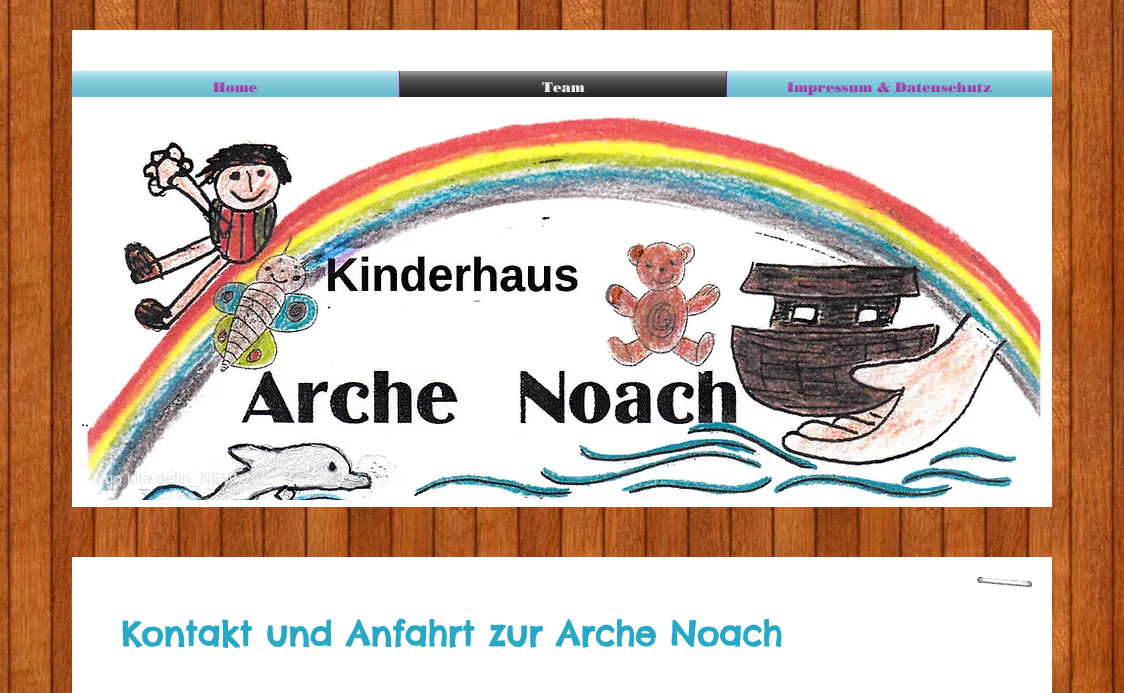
#include <cairo.h>
#include <math.h>
#include <stddef.h>


static void set_color(cairo_t *cr, unsigned color) {
    cairo_set_source_rgb(cr, (color >> 16) / 255.0, (color >> 8 & 255) / 255.0, (color & 255) / 255.0);
}

static void draw_text(cairo_t *cr, double x, double y, const char *s, const char *family, double size, int italic, int bold, unsigned color) {
    cairo_select_font_face(cr, family, italic ? CAIRO_FONT_SLANT_ITALIC : CAIRO_FONT_SLANT_NORMAL,
        bold ? CAIRO_FONT_WEIGHT_BOLD : CAIRO_FONT_WEIGHT_NORMAL);
    cairo_set_font_size(cr, size);
    set_color(cr, color);
    cairo_move_to(cr, x, y);
    cairo_show_text(cr, s);
}

static void fill_rect(cairo_t *cr, double x, double y, double w, double h, unsigned color) {
    set_color(cr, color);
    cairo_rectangle(cr, x, y, w, h);
    cairo_fill(cr);
}

static void draw_image(cairo_t *cr, const char *path, double x, double y, double w, double h) {
    cairo_surface_t *image = cairo_image_surface_create_from_png(path);
    cairo_save(cr);
    cairo_set_source_surface(cr, image, x, y);
    cairo_rectangle(cr, x, y, w, h);
    cairo_fill(cr);
    cairo_restore(cr);
    cairo_surface_destroy(image);
}

int main(void) {
    cairo_surface_t *surface = cairo_image_surface_create(CAIRO_FORMAT_RGB24, 1124, 693);
    cairo_t *cr = cairo_create(surface);
    cairo_font_options_t *options = cairo_font_options_create();
    cairo_font_options_set_hint_metrics(options, CAIRO_HINT_METRICS_OFF);
    cairo_font_options_set_hint_style(options, CAIRO_HINT_STYLE_NONE);
    cairo_set_font_options(cr, options);
    cairo_set_miter_limit(cr, 4);
    set_color(cr, 0xFFFFFF);
    cairo_paint(cr);
    draw_image(cr, "assets/img1.png", 0, 0, 1124, 693);
    fill_rect(cr, 72, 30, 980, 41, 0xFFFFFF);
    fill_rect(cr, 72, 71, 327, 26, 0x59C7E0);
    draw_text(cr, 213, 92, "Home", "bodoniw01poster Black", 14, 0, 0, 0x9711A3);
    draw_image(cr, "assets/img2.png", 72, 71, 327, 26);
    draw_image(cr, "assets/img3.png", 72, 71, 327, 26);
    fill_rect(cr, 400, 71, 326, 26, 0x000000);
    fill_rect(cr, 399, 71, 1, 33, 0x9711A3);
    draw_text(cr, 542, 92, "Team", "bodoniw01poster Black", 14, 0, 0, 0xFFFFFF);
    draw_image(cr, "assets/img4.png", 400, 71, 326, 26);
    draw_image(cr, "assets/img5.png", 400, 72, 326, 23);
    fill_rect(cr, 727, 71, 325, 26, 0x59C7E0);
    fill_rect(cr, 726, 71, 1, 33, 0x9711A3);
    draw_text(cr, 787, 92, "Impressum & Datenschutz", "bodoniw01poster Black", 14, 0, 0, 0x9711A3);
    draw_image(cr, "assets/img6.png", 727, 71, 325, 26);
    draw_image(cr, "assets/img7.png", 727, 71, 325, 26);
    fill_rect(cr, 72, 97, 980, 410, 0xFFFFFF);
    draw_image(cr, "assets/img8.png", 82, 112, 960, 388);
    draw_text(cr, 92, 484, "logo kita defin_NEW", "Liberation Sans", 16, 0, 0, 0xE3E5E6);
    fill_rect(cr, 72, 557, 980, 136, 0xFFFFFF);
    draw_image(cr, "assets/img9.png", 977, 577, 55, 10);
    draw_text(cr, 121, 646, "Kontakt und Anfahrt zur Arche Noach", "Chelsea Market", 34, 0, 1, 0x27A8C7);
    cairo_surface_write_to_png(surface, "output.png");
    cairo_font_options_destroy(options);
    cairo_destroy(cr);
    cairo_surface_destroy(surface);
    return 0;
}
